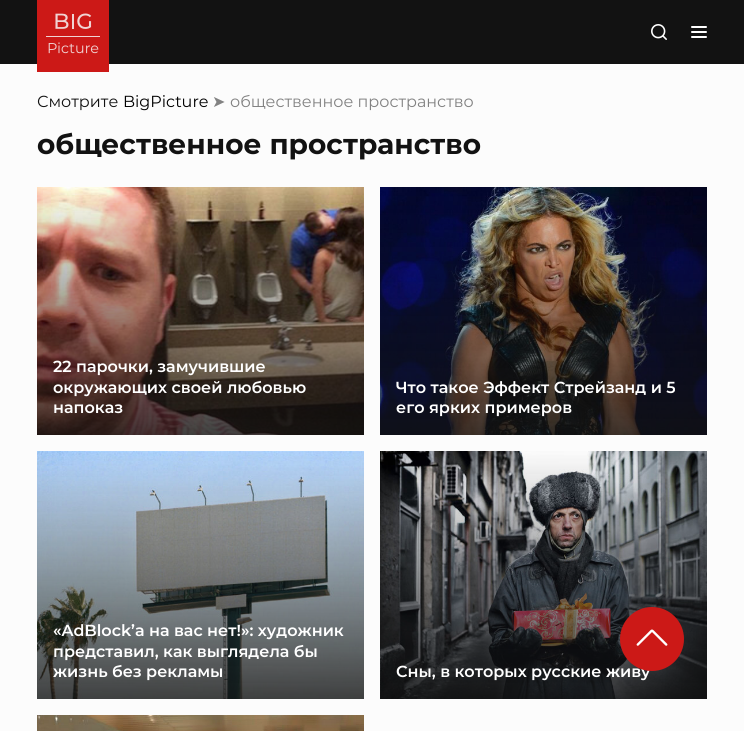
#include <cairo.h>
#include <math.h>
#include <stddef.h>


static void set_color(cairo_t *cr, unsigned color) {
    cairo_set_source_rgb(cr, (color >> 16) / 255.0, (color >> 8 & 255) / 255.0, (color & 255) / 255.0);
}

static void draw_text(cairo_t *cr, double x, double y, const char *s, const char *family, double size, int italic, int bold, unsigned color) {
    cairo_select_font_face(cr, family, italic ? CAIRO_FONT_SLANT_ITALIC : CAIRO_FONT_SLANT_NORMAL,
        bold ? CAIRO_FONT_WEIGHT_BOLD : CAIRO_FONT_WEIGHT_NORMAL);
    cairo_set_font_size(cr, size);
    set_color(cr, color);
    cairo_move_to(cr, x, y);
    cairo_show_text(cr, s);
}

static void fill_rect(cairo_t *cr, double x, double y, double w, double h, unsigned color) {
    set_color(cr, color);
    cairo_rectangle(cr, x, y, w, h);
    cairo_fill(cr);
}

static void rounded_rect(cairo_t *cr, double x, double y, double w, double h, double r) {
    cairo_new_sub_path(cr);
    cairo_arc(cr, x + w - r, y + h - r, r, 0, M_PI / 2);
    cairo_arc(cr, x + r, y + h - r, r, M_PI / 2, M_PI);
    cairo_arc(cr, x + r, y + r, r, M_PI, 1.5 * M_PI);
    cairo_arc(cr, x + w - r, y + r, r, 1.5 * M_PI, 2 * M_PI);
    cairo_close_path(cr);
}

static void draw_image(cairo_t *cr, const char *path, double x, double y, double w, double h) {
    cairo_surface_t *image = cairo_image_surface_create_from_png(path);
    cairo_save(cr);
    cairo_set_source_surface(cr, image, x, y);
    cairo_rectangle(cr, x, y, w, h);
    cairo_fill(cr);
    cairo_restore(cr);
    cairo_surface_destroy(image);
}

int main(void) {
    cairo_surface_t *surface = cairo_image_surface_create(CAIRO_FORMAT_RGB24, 744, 731);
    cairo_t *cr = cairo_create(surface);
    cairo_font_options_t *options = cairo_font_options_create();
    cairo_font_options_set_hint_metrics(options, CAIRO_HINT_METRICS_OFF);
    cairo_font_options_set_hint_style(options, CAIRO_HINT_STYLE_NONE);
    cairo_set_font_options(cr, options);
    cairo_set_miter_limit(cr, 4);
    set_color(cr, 0xFCFCFC);
    cairo_paint(cr);
    fill_rect(cr, 0, 0, 744, 64, 0x121212);
    draw_image(cr, "assets/img1.png", 37, 0, 72, 72);
    draw_image(cr, "assets/img2.png", 651, 24, 16, 16);
    set_color(cr, 0xFFFFFF);
    rounded_rect(cr, 691, 26, 16, 2, 1);
    cairo_fill(cr);
    rounded_rect(cr, 691, 31, 16, 2, 1);
    cairo_fill(cr);
    rounded_rect(cr, 691, 36, 16, 2, 1);
    cairo_fill(cr);
    draw_text(cr, 37, 107, "Смотрите", "Montserrat", 16, 0, 0, 0x121212);
    draw_text(cr, 123, 107, "BigPicture", "Montserrat", 16, 0, 0, 0x000000);
    draw_text(cr, 212, 107, "➤", "DejaVu Sans", 16, 0, 0, 0x828282);
    draw_text(cr, 230, 107, "общественное пространство", "Montserrat", 16, 0, 0, 0x828282);
    draw_text(cr, 37, 154, "общественное пространство", "Montserrat", 28, 0, 1, 0x121212);
    draw_image(cr, "assets/img3.png", 37, 187, 327, 248);
    draw_text(cr, 53, 372, "22 парочки, замучившие", "Montserrat SemiBold", 16, 0, 0, 0xFFFFFF);
    draw_text(cr, 53, 393, "окружающих своей любовью", "Montserrat SemiBold", 16, 0, 0, 0xFFFFFF);
    draw_text(cr, 53, 413, "напоказ", "Montserrat SemiBold", 16, 0, 0, 0xFFFFFF);
    draw_image(cr, "assets/img4.png", 380, 187, 327, 248);
    draw_text(cr, 396, 393, "Что такое Эффект Стрейзанд и 5", "Montserrat SemiBold", 16, 0, 0, 0xFFFFFF);
    draw_text(cr, 396, 413, "его ярких примеров", "Montserrat SemiBold", 16, 0, 0, 0xFFFFFF);
    draw_image(cr, "assets/img5.png", 37, 451, 327, 248);
    draw_text(cr, 53, 636, "«AdBlock’а на вас нет!»: художник", "Montserrat SemiBold", 16, 0, 0, 0xFFFFFF);
    draw_text(cr, 53, 657, "представил, как выглядела бы", "Montserrat SemiBold", 16, 0, 0, 0xFFFFFF);
    draw_text(cr, 53, 677, "жизнь без рекламы", "Montserrat SemiBold", 16, 0, 0, 0xFFFFFF);
    draw_image(cr, "assets/img6.png", 380, 451, 327, 248);
    draw_text(cr, 396, 677, "Сны, в которых русские живу", "Montserrat SemiBold", 16, 0, 0, 0xFFFFFF);
    draw_image(cr, "assets/img7.png", 37, 715, 327, 16);
    draw_image(cr, "assets/img8.png", 620, 607, 64, 64);
    cairo_surface_write_to_png(surface, "output.png");
    cairo_font_options_destroy(options);
    cairo_destroy(cr);
    cairo_surface_destroy(surface);
    return 0;
}
